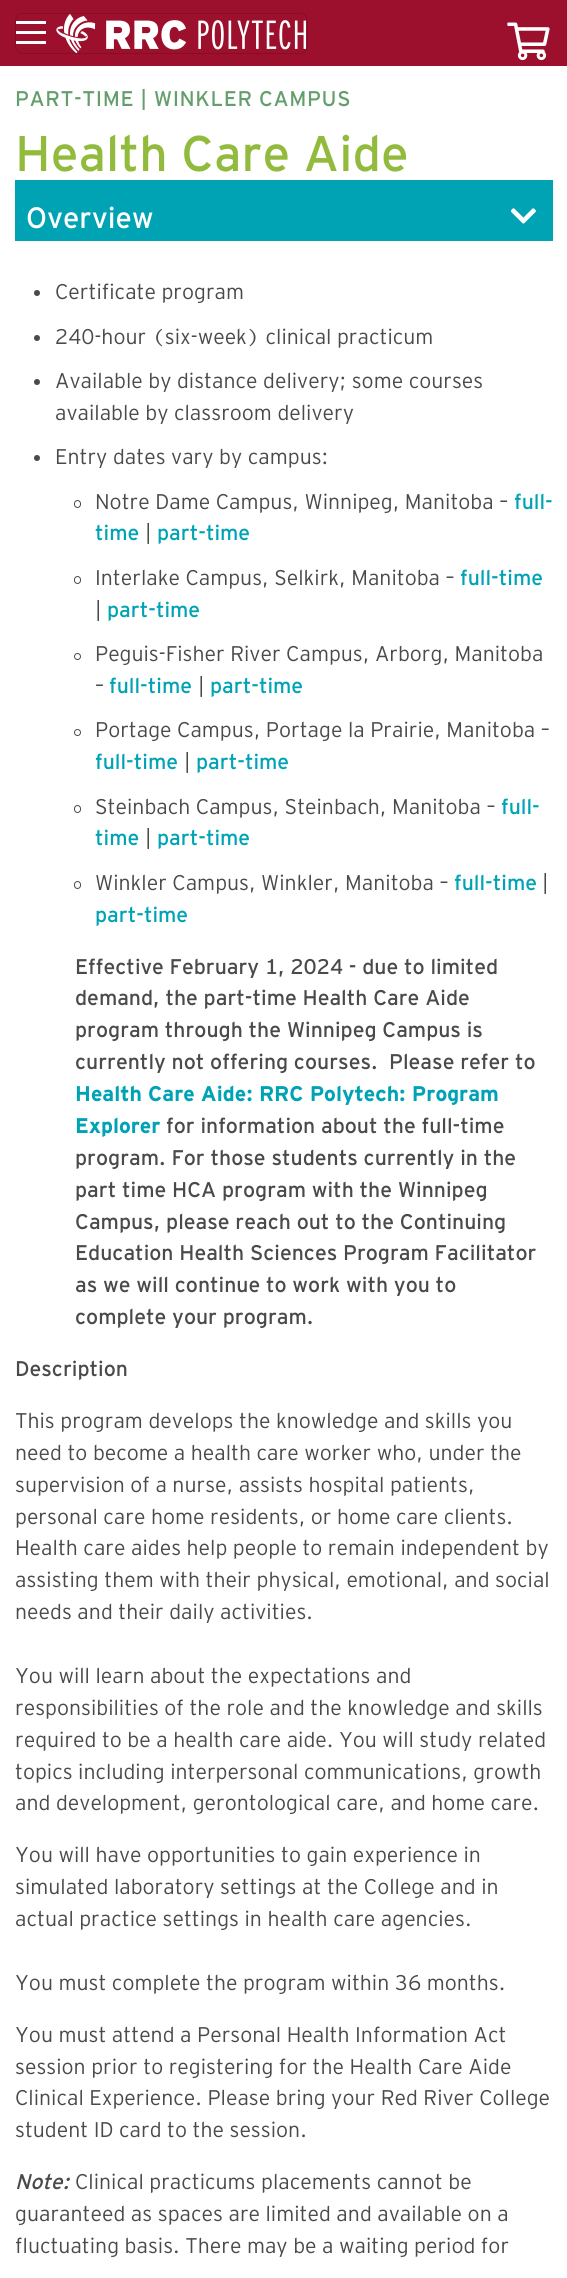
#include <cairo.h>
#include <math.h>
#include <stddef.h>


static void set_color(cairo_t *cr, unsigned color) {
    cairo_set_source_rgb(cr, (color >> 16) / 255.0, (color >> 8 & 255) / 255.0, (color & 255) / 255.0);
}

static void draw_text(cairo_t *cr, double x, double y, const char *s, const char *family, double size, int italic, int bold, unsigned color) {
    cairo_select_font_face(cr, family, italic ? CAIRO_FONT_SLANT_ITALIC : CAIRO_FONT_SLANT_NORMAL,
        bold ? CAIRO_FONT_WEIGHT_BOLD : CAIRO_FONT_WEIGHT_NORMAL);
    cairo_set_font_size(cr, size);
    set_color(cr, color);
    cairo_move_to(cr, x, y);
    cairo_show_text(cr, s);
}

static void draw_spaced(cairo_t *cr, double x, double y, const char *s, double letter, double word) {
    cairo_move_to(cr, x, y);
    while (*s) {
        char ch[5] = {0};
        int n = 0;
        do ch[n++] = *s++; while ((*s & 0xC0) == 0x80);
        cairo_show_text(cr, ch);
        cairo_rel_move_to(cr, letter + word * (*ch == ' '), 0);
    }
}

static void fill_rect(cairo_t *cr, double x, double y, double w, double h, unsigned color) {
    set_color(cr, color);
    cairo_rectangle(cr, x, y, w, h);
    cairo_fill(cr);
}

static void rounded_rect(cairo_t *cr, double x, double y, double w, double h, double r) {
    cairo_new_sub_path(cr);
    cairo_arc(cr, x + w - r, y + h - r, r, 0, M_PI / 2);
    cairo_arc(cr, x + r, y + h - r, r, M_PI / 2, M_PI);
    cairo_arc(cr, x + r, y + r, r, M_PI, 1.5 * M_PI);
    cairo_arc(cr, x + w - r, y + r, r, 1.5 * M_PI, 2 * M_PI);
    cairo_close_path(cr);
}

static void draw_image(cairo_t *cr, const char *path, double x, double y, double w, double h) {
    cairo_surface_t *image = cairo_image_surface_create_from_png(path);
    cairo_save(cr);
    cairo_set_source_surface(cr, image, x, y);
    cairo_rectangle(cr, x, y, w, h);
    cairo_fill(cr);
    cairo_restore(cr);
    cairo_surface_destroy(image);
}

int main(void) {
    cairo_surface_t *surface = cairo_image_surface_create(CAIRO_FORMAT_RGB24, 567, 2278);
    cairo_t *cr = cairo_create(surface);
    cairo_font_options_t *options = cairo_font_options_create();
    cairo_font_options_set_hint_metrics(options, CAIRO_HINT_METRICS_OFF);
    cairo_font_options_set_hint_style(options, CAIRO_HINT_STYLE_NONE);
    cairo_set_font_options(cr, options);
    cairo_set_miter_limit(cr, 4);
    set_color(cr, 0xFFFFFF);
    cairo_paint(cr);
    fill_rect(cr, 0, 0, 567, 66, 0x9C102D);
    rounded_rect(cr, 15.5, 13.5, 292, 40, 7.5);
    set_color(cr, 0x850E26);
    cairo_set_line_width(cr, 1);
    cairo_stroke(cr);
    fill_rect(cr, 16, 21, 30, 3, 0xFFFFFF);
    fill_rect(cr, 16, 31, 30, 3, 0xFFFFFF);
    fill_rect(cr, 16, 41, 30, 3, 0xFFFFFF);
    draw_image(cr, "assets/img1.png", 56, 14, 250, 39);
    draw_image(cr, "assets/img2.png", 507, 22, 43, 39);
    cairo_select_font_face(cr, "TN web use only", CAIRO_FONT_SLANT_NORMAL, CAIRO_FONT_WEIGHT_NORMAL);
    cairo_set_font_size(cr, 21.25);
    set_color(cr, 0x639E6C);
    draw_spaced(cr, 15, 106, "PART-TIME | WINKLER CAMPUS", 0.6, 0);
    draw_text(cr, 15, 171, "Health Care Aide", "TN web use only", 50, 0, 0, 0x92BB3E);
    fill_rect(cr, 15, 180, 538, 61, 0x00A3B4);
    draw_text(cr, 26, 228, "Overview", "TN web use only", 29.5, 0, 0, 0xFFFFFF);
    draw_image(cr, "assets/img3.png", 510, 208, 26, 16);
    set_color(cr, 0x4A4A4A);
    cairo_arc(cr, 37, 293, 3, 0, 2 * M_PI);
    cairo_fill(cr);
    draw_text(cr, 55, 299, "Certificate program", "TN web use only Light", 21.25, 0, 0, 0x4A4A4A);
    cairo_new_path(cr);
    cairo_arc(cr, 37, 338, 3, 0, 2 * M_PI);
    cairo_fill(cr);
    draw_text(cr, 55, 344, "240-hour (six-week) clinical practicum", "TN web use only Light", 21.25, 0, 0, 0x4A4A4A);
    cairo_new_path(cr);
    cairo_arc(cr, 37, 382, 3, 0, 2 * M_PI);
    cairo_fill(cr);
    draw_text(cr, 55, 388, "Available by distance delivery; some courses", "TN web use only Light", 21.25, 0, 0, 0x4A4A4A);
    draw_text(cr, 55, 420, "available by classroom delivery", "TN web use only Light", 21.25, 0, 0, 0x4A4A4A);
    cairo_new_path(cr);
    cairo_arc(cr, 37, 458, 3, 0, 2 * M_PI);
    cairo_fill(cr);
    draw_text(cr, 55, 464, "Entry dates vary by campus:", "TN web use only Light", 21.25, 0, 0, 0x4A4A4A);
    rounded_rect(cr, 74.5, 500.5, 6, 7, 3);
    cairo_stroke(cr);
    draw_text(cr, 95, 509, "Notre Dame Campus, Winnipeg, Manitoba –", "TN web use only Light", 21.25, 0, 0, 0x4A4A4A);
    draw_text(cr, 514, 509, "full-", "TN web use only", 21.25, 0, 0, 0x00A3B5);
    draw_text(cr, 95, 540, "time", "TN web use only", 21.25, 0, 0, 0x00A3B5);
    draw_text(cr, 145, 540, "|", "TN web use only Light", 21.25, 0, 0, 0x4A4A4A);
    draw_text(cr, 157, 540, "part-time", "TN web use only", 21.25, 0, 0, 0x00A3B5);
    rounded_rect(cr, 74.5, 576.5, 6, 7, 3);
    set_color(cr, 0x4A4A4A);
    cairo_stroke(cr);
    draw_text(cr, 95, 585, "Interlake Campus, Selkirk, Manitoba –", "TN web use only Light", 21.25, 0, 0, 0x4A4A4A);
    draw_text(cr, 460, 585, "full-time", "TN web use only", 21.25, 0, 0, 0x00A3B5);
    draw_text(cr, 95, 617, "|", "TN web use only Light", 21.25, 0, 0, 0x4A4A4A);
    draw_text(cr, 107, 617, "part-time", "TN web use only", 21.25, 0, 0, 0x00A3B5);
    cairo_new_path(cr);
    cairo_arc(cr, 77.5, 656.5, 3, 0, 2 * M_PI);
    set_color(cr, 0x4A4A4A);
    cairo_stroke(cr);
    draw_text(cr, 95, 661, "Peguis-Fisher River Campus, Arborg, Manitoba", "TN web use only Light", 21.25, 0, 0, 0x4A4A4A);
    draw_text(cr, 95, 693, "–", "TN web use only Light", 21.25, 0, 0, 0x4A4A4A);
    draw_text(cr, 109, 693, "full-time", "TN web use only", 21.25, 0, 0, 0x00A3B5);
    draw_text(cr, 198, 693, "|", "TN web use only Light", 21.25, 0, 0, 0x4A4A4A);
    draw_text(cr, 210, 693, "part-time", "TN web use only", 21.25, 0, 0, 0x00A3B5);
    cairo_new_path(cr);
    cairo_arc(cr, 77.5, 732.5, 3, 0, 2 * M_PI);
    set_color(cr, 0x4A4A4A);
    cairo_stroke(cr);
    draw_text(cr, 95, 737, "Portage Campus, Portage la Prairie, Manitoba –", "TN web use only Light", 21.25, 0, 0, 0x4A4A4A);
    draw_text(cr, 95, 769, "full-time", "TN web use only", 21.25, 0, 0, 0x00A3B5);
    draw_text(cr, 184, 769, "|", "TN web use only Light", 21.25, 0, 0, 0x4A4A4A);
    draw_text(cr, 196, 769, "part-time", "TN web use only", 21.25, 0, 0, 0x00A3B5);
    rounded_rect(cr, 74.5, 805.5, 6, 7, 3);
    set_color(cr, 0x4A4A4A);
    cairo_stroke(cr);
    draw_text(cr, 95, 814, "Steinbach Campus, Steinbach, Manitoba –", "TN web use only Light", 21.25, 0, 0, 0x4A4A4A);
    draw_text(cr, 501, 814, "full-", "TN web use only", 21.25, 0, 0, 0x00A3B5);
    draw_text(cr, 95, 845, "time", "TN web use only", 21.25, 0, 0, 0x00A3B5);
    draw_text(cr, 145, 845, "|", "TN web use only Light", 21.25, 0, 0, 0x4A4A4A);
    draw_text(cr, 157, 845, "part-time", "TN web use only", 21.25, 0, 0, 0x00A3B5);
    rounded_rect(cr, 74.5, 881.5, 6, 7, 3);
    set_color(cr, 0x4A4A4A);
    cairo_stroke(cr);
    draw_text(cr, 95, 890, "Winkler Campus, Winkler, Manitoba –", "TN web use only Light", 21.25, 0, 0, 0x4A4A4A);
    draw_text(cr, 454, 890, "full-time", "TN web use only", 21.25, 0, 0, 0x00A3B5);
    draw_text(cr, 542, 890, "|", "TN web use only Light", 21.25, 0, 0, 0x4A4A4A);
    draw_text(cr, 95, 922, "part-time", "TN web use only", 21.25, 0, 0, 0x00A3B5);
    draw_text(cr, 75, 974, "Effective February 1, 2024 - due to limited", "TN web use only", 21.25, 0, 0, 0x4A4A4A);
    draw_text(cr, 75, 1005, "demand, the part-time Health Care Aide", "TN web use only", 21.25, 0, 0, 0x4A4A4A);
    draw_text(cr, 75, 1037, "program through the Winnipeg Campus is", "TN web use only", 21.25, 0, 0, 0x4A4A4A);
    draw_text(cr, 75, 1069, "currently not offering courses.  Please refer to", "TN web use only", 21.25, 0, 0, 0x4A4A4A);
    draw_text(cr, 75, 1101, "Health Care Aide: RRC Polytech: Program", "TN web use only", 21.25, 0, 1, 0x00A3B5);
    draw_text(cr, 75, 1133, "Explorer", "TN web use only", 21.25, 0, 1, 0x00A3B5);
    draw_text(cr, 166, 1133, "for information about the full-time", "TN web use only", 21.25, 0, 0, 0x4A4A4A);
    draw_text(cr, 75, 1165, "program. For those students currently in the", "TN web use only", 21.25, 0, 0, 0x4A4A4A);
    draw_text(cr, 75, 1197, "part time HCA program with the Winnipeg", "TN web use only", 21.25, 0, 0, 0x4A4A4A);
    draw_text(cr, 75, 1229, "Campus, please reach out to the Continuing", "TN web use only", 21.25, 0, 0, 0x4A4A4A);
    draw_text(cr, 75, 1260, "Education Health Sciences Program Facilitator", "TN web use only", 21.25, 0, 0, 0x4A4A4A);
    draw_text(cr, 75, 1292, "as we will continue to work with you to", "TN web use only", 21.25, 0, 0, 0x4A4A4A);
    draw_text(cr, 75, 1324, "complete your program.", "TN web use only", 21.25, 0, 0, 0x4A4A4A);
    draw_text(cr, 15, 1376, "Description", "TN web use only", 21.25, 0, 0, 0x4A4A4A);
    draw_text(cr, 15, 1428, "This program develops the knowledge and skills you", "TN web use only Light", 21.25, 0, 0, 0x4A4A4A);
    draw_text(cr, 15, 1460, "need to become a health care worker who, under the", "TN web use only Light", 21.25, 0, 0, 0x4A4A4A);
    draw_text(cr, 15, 1492, "supervision of a nurse, assists hospital patients,", "TN web use only Light", 21.25, 0, 0, 0x4A4A4A);
    draw_text(cr, 15, 1524, "personal care home residents, or home care clients.", "TN web use only Light", 21.25, 0, 0, 0x4A4A4A);
    draw_text(cr, 15, 1555, "Health care aides help people to remain independent by", "TN web use only Light", 21.25, 0, 0, 0x4A4A4A);
    draw_text(cr, 15, 1587, "assisting them with their physical, emotional, and social", "TN web use only Light", 21.25, 0, 0, 0x4A4A4A);
    draw_text(cr, 15, 1619, "needs and their daily activities.", "TN web use only Light", 21.25, 0, 0, 0x4A4A4A);
    draw_text(cr, 15, 1683, "You will learn about the expectations and", "TN web use only Light", 21.25, 0, 0, 0x4A4A4A);
    draw_text(cr, 15, 1715, "responsibilities of the role and the knowledge and skills", "TN web use only Light", 21.25, 0, 0, 0x4A4A4A);
    draw_text(cr, 15, 1747, "required to be a health care aide. You will study related", "TN web use only Light", 21.25, 0, 0, 0x4A4A4A);
    draw_text(cr, 15, 1779, "topics including interpersonal communications, growth", "TN web use only Light", 21.25, 0, 0, 0x4A4A4A);
    draw_text(cr, 15, 1810, "and development, gerontological care, and home care.", "TN web use only Light", 21.25, 0, 0, 0x4A4A4A);
    draw_text(cr, 15, 1862, "You will have opportunities to gain experience in", "TN web use only Light", 21.25, 0, 0, 0x4A4A4A);
    draw_text(cr, 15, 1894, "simulated laboratory settings at the College and in", "TN web use only Light", 21.25, 0, 0, 0x4A4A4A);
    draw_text(cr, 15, 1926, "actual practice settings in health care agencies.", "TN web use only Light", 21.25, 0, 0, 0x4A4A4A);
    draw_text(cr, 15, 1990, "You must complete the program within 36 months.", "TN web use only Light", 21.25, 0, 0, 0x4A4A4A);
    draw_text(cr, 15, 2042, "You must attend a Personal Health Information Act", "TN web use only Light", 21.25, 0, 0, 0x4A4A4A);
    draw_text(cr, 15, 2074, "session prior to registering for the Health Care Aide", "TN web use only Light", 21.25, 0, 0, 0x4A4A4A);
    draw_text(cr, 15, 2105, "Clinical Experience. Please bring your Red River College", "TN web use only Light", 21.25, 0, 0, 0x4A4A4A);
    draw_text(cr, 15, 2137, "student ID card to the session.", "TN web use only Light", 21.25, 0, 0, 0x4A4A4A);
    draw_text(cr, 15, 2189, "Note:", "TN web use only", 21.25, 1, 0, 0x4A4A4A);
    draw_text(cr, 75, 2189, "Clinical practicums placements cannot be", "TN web use only Light", 21.25, 0, 0, 0x4A4A4A);
    draw_text(cr, 15, 2221, "guaranteed as spaces are limited and available on a", "TN web use only Light", 21.25, 0, 0, 0x4A4A4A);
    draw_text(cr, 15, 2253, "fluctuating basis. There may be a waiting period for", "TN web use only Light", 21.25, 0, 0, 0x4A4A4A);
    cairo_surface_write_to_png(surface, "output.png");
    cairo_font_options_destroy(options);
    cairo_destroy(cr);
    cairo_surface_destroy(surface);
    return 0;
}
